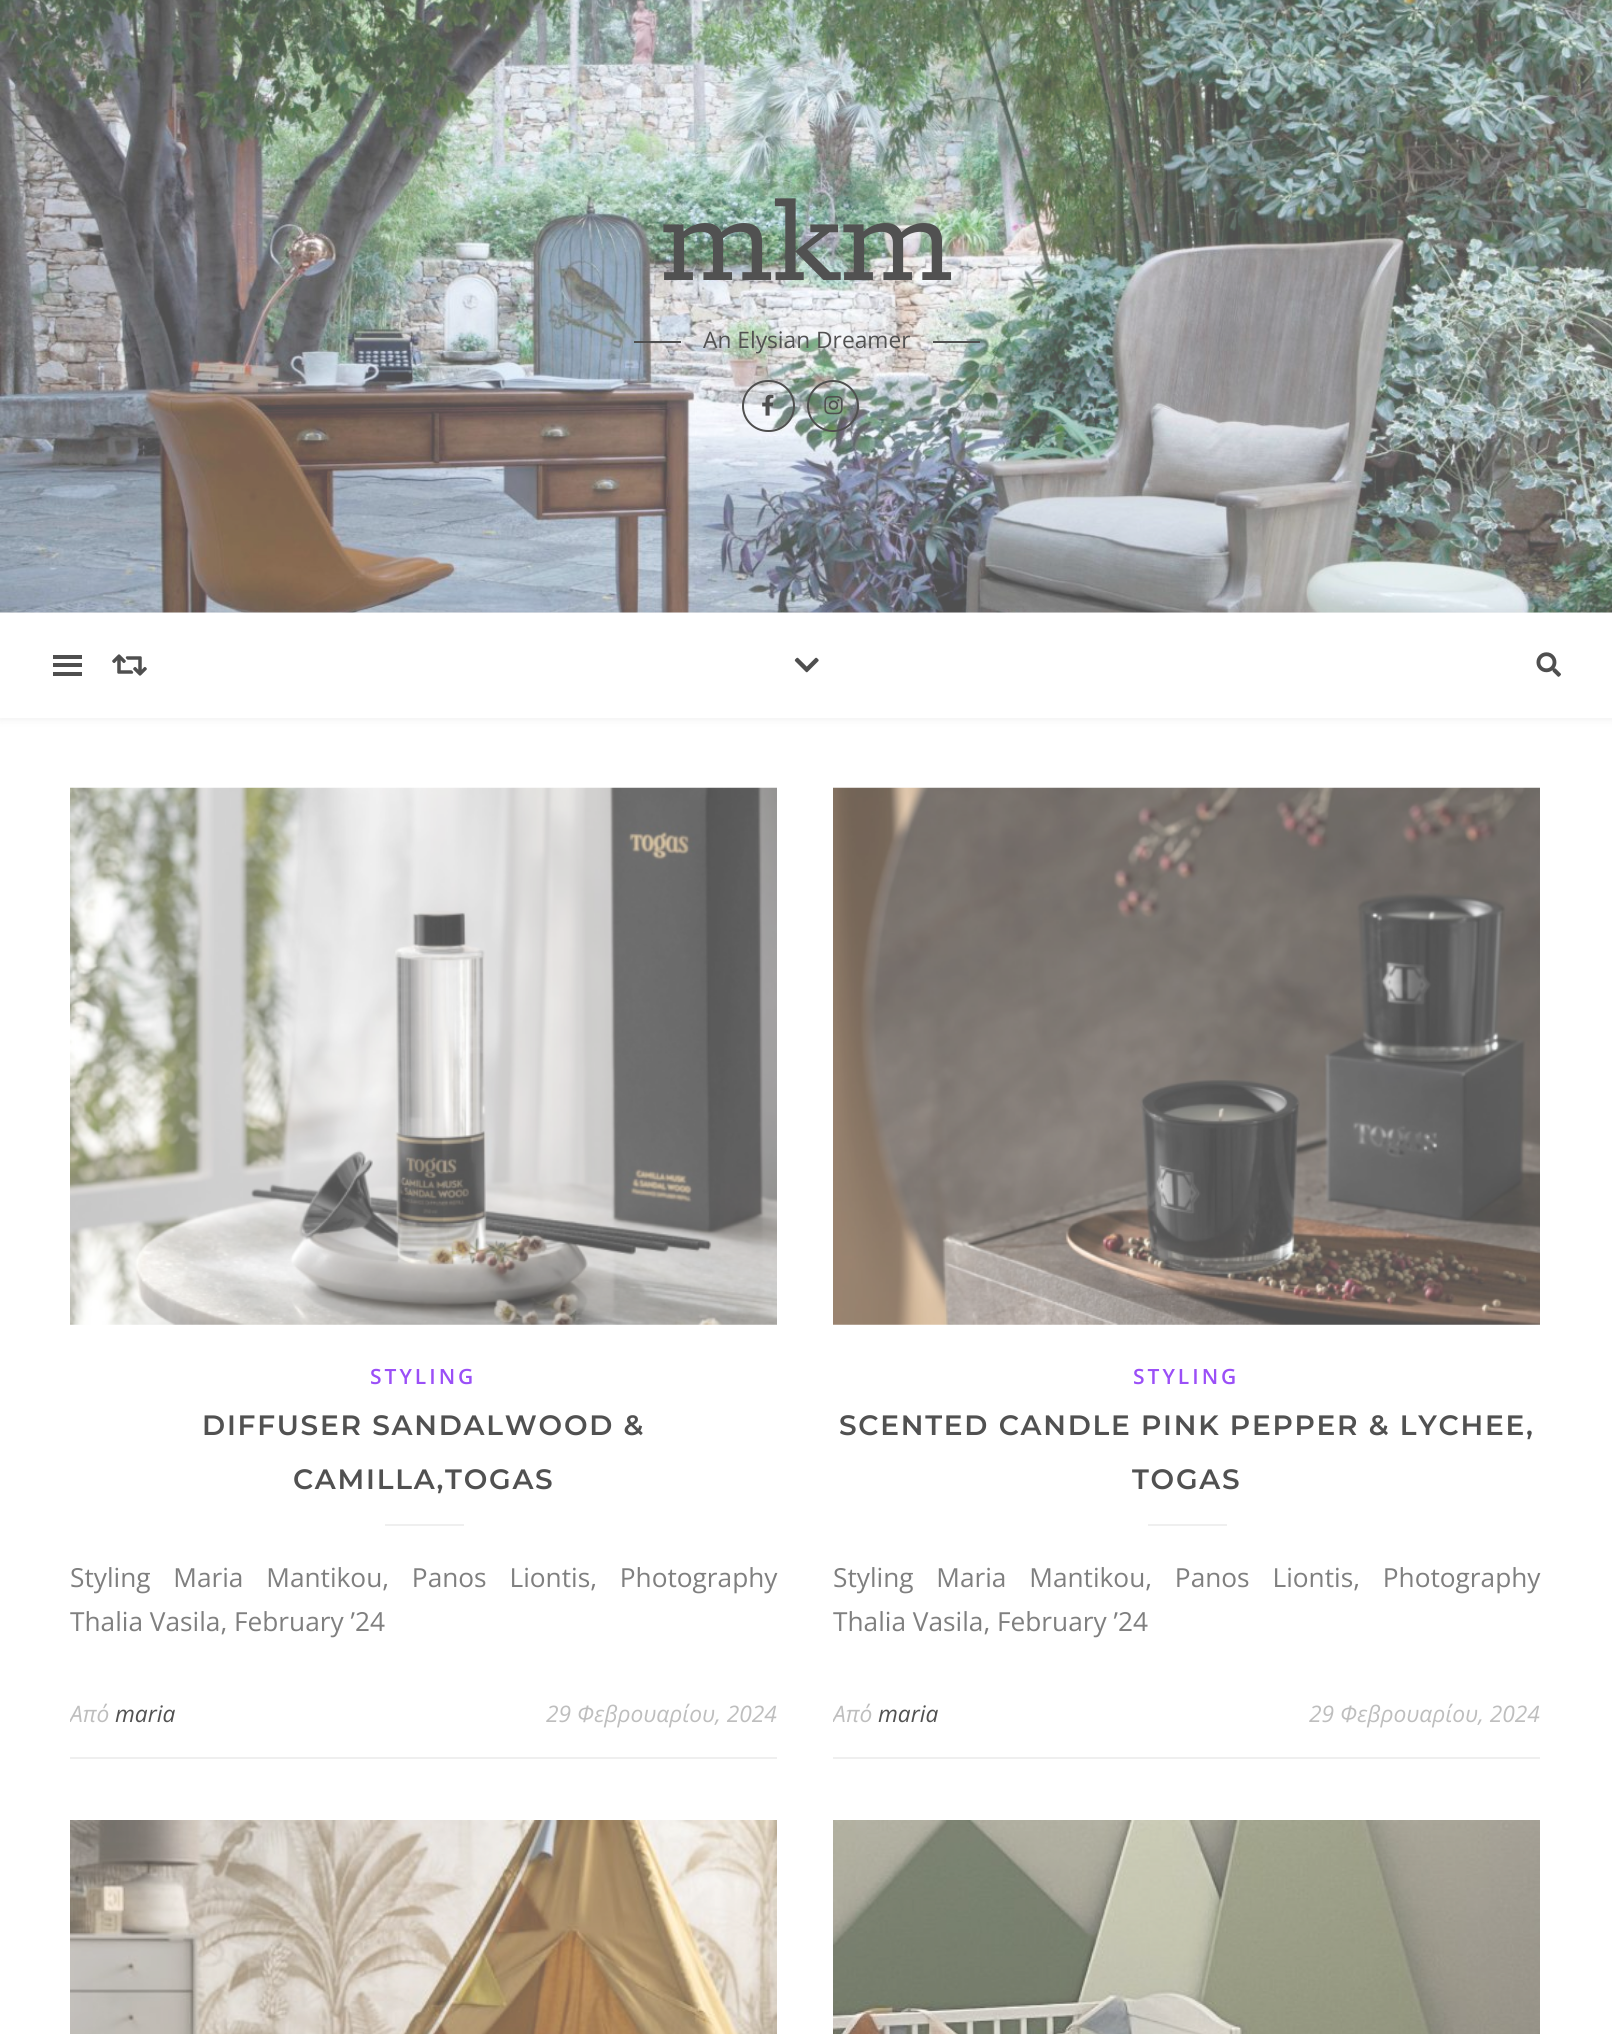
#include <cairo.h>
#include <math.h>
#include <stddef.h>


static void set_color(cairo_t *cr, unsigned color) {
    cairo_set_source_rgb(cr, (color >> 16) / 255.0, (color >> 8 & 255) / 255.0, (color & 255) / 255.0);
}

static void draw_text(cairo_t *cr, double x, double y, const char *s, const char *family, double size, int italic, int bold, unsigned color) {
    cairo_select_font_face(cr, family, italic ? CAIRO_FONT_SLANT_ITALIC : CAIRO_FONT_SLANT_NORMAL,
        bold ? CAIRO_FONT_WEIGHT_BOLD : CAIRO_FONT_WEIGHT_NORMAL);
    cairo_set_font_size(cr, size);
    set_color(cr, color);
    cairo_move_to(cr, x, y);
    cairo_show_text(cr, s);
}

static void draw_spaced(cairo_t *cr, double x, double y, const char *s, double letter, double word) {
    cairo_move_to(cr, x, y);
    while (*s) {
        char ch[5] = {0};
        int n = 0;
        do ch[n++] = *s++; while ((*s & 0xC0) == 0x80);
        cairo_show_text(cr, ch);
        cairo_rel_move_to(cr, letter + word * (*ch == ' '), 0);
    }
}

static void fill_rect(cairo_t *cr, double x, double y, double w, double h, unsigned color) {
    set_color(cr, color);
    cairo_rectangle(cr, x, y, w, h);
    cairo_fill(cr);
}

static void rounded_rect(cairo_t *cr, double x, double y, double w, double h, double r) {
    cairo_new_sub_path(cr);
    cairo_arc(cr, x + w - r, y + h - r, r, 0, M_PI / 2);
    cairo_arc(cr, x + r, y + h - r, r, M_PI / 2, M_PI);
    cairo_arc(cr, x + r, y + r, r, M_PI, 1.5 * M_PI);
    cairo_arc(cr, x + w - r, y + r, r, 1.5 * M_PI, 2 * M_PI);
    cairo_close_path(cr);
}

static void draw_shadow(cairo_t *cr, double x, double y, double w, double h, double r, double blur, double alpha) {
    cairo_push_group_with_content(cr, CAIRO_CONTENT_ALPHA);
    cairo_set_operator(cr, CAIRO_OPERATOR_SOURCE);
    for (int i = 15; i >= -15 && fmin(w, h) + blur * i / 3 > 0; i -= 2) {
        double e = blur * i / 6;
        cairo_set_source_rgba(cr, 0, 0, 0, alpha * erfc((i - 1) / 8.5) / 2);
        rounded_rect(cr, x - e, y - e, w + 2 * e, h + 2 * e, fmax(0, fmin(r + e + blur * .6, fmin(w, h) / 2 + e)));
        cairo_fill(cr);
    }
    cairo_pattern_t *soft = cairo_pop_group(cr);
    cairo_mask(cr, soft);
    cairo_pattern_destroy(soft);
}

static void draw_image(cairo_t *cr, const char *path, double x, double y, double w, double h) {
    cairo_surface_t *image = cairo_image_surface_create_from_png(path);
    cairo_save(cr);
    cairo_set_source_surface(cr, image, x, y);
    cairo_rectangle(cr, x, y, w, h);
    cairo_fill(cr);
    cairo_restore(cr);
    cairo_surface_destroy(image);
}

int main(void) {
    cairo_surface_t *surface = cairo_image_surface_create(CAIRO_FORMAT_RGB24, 1612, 2034);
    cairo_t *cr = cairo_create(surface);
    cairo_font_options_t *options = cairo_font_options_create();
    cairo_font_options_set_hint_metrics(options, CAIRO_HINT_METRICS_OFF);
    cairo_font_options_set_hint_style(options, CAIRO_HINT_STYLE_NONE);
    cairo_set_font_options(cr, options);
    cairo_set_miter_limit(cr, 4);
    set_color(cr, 0xFFFFFF);
    cairo_paint(cr);
    draw_image(cr, "assets/img1.png", 0, 0, 1612, 613);
    draw_text(cr, 661, 280, "mkm", "Rokkitt SemiBold", 140, 0, 0, 0x515151);
    fill_rect(cr, 634, 341, 47, 2, 0x4F4F4F);
    draw_text(cr, 703, 348, "An Elysian Dreamer", "Open Sans", 22.75, 0, 0, 0x515151);
    fill_rect(cr, 933, 341, 47, 2, 0x4F4F4F);
    rounded_rect(cr, 743, 381, 51, 50, 25);
    cairo_stroke(cr);
    draw_image(cr, "assets/img2.png", 762, 394, 12, 22);
    cairo_arc(cr, 833, 406, 25, 0, 2 * M_PI);
    cairo_stroke(cr);
    draw_image(cr, "assets/img3.png", 824, 395, 19, 20);
    set_color(cr, 0x4F4F4F);
    draw_shadow(cr, 0, 614, 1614, 105, 0, 4.5, 0.1);
    fill_rect(cr, 0, 613, 1612, 105, 0xFFFFFF);
    fill_rect(cr, 53, 655, 29, 4, 0x4F4F4F);
    fill_rect(cr, 53, 663, 29, 4, 0x4F4F4F);
    fill_rect(cr, 53, 672, 29, 4, 0x4F4F4F);
    draw_image(cr, "assets/img4.png", 112, 654, 35, 22);
    draw_image(cr, "assets/img5.png", 794, 657, 25, 16);
    draw_image(cr, "assets/img6.png", 1536, 652, 25, 25);
    draw_image(cr, "assets/img7.png", 70, 787, 707, 538);
    cairo_select_font_face(cr, "Open Sans SemiBold", CAIRO_FONT_SLANT_NORMAL, CAIRO_FONT_WEIGHT_NORMAL);
    cairo_set_font_size(cr, 21);
    set_color(cr, 0x9B4FF7);
    draw_spaced(cr, 370, 1384, "STYLING", 3, 0);
    cairo_select_font_face(cr, "Montserrat SemiBold", CAIRO_FONT_SLANT_NORMAL, CAIRO_FONT_WEIGHT_NORMAL);
    cairo_set_font_size(cr, 28);
    set_color(cr, 0x515151);
    draw_spaced(cr, 202, 1435, "DIFFUSER SANDALWOOD &", 1.75, 0);
    draw_spaced(cr, 293, 1489, "CAMILLA,TOGAS", 1.75, 0);
    fill_rect(cr, 385, 1524, 79, 2, 0xEFEFEF);
    cairo_select_font_face(cr, "Open Sans", CAIRO_FONT_SLANT_NORMAL, CAIRO_FONT_WEIGHT_NORMAL);
    cairo_set_font_size(cr, 26.25);
    set_color(cr, 0x7F7F7F);
    draw_spaced(cr, 70, 1587, "Styling Maria Mantikou, Panos Liontis, Photography", 0, 16);
    draw_text(cr, 70, 1631, "Thalia Vasila, February ’24", "Open Sans", 26.25, 0, 0, 0x7F7F7F);
    fill_rect(cr, 70, 1757, 707, 2, 0xEFEFEF);
    cairo_save(cr);
    cairo_rectangle(cr, 70, 1670, 707, 87);
    cairo_clip(cr);
    draw_text(cr, 70, 1722, "Από", "Open Sans", 22.75, 1, 0, 0xBEBEBE);
    cairo_restore(cr);
    draw_text(cr, 115, 1722, "maria", "Open Sans", 22.75, 1, 0, 0x515151);
    draw_text(cr, 546, 1722, "29 Φεβρουαρίου, 2024", "Open Sans", 22.75, 1, 0, 0xBEBEBE);
    draw_image(cr, "assets/img8.png", 833, 787, 707, 538);
    cairo_select_font_face(cr, "Open Sans SemiBold", CAIRO_FONT_SLANT_NORMAL, CAIRO_FONT_WEIGHT_NORMAL);
    cairo_set_font_size(cr, 21);
    set_color(cr, 0x9B4FF7);
    draw_spaced(cr, 1133, 1384, "STYLING", 3, 0);
    cairo_select_font_face(cr, "Montserrat SemiBold", CAIRO_FONT_SLANT_NORMAL, CAIRO_FONT_WEIGHT_NORMAL);
    cairo_set_font_size(cr, 28);
    set_color(cr, 0x515151);
    draw_spaced(cr, 839, 1435, "SCENTED CANDLE PINK PEPPER & LYCHEE,", 1.75, 0);
    draw_spaced(cr, 1132, 1489, "TOGAS", 1.75, 0);
    fill_rect(cr, 1148, 1524, 79, 2, 0xEFEFEF);
    cairo_select_font_face(cr, "Open Sans", CAIRO_FONT_SLANT_NORMAL, CAIRO_FONT_WEIGHT_NORMAL);
    cairo_set_font_size(cr, 26.25);
    set_color(cr, 0x7F7F7F);
    draw_spaced(cr, 833, 1587, "Styling Maria Mantikou, Panos Liontis, Photography", 0, 16);
    draw_text(cr, 833, 1631, "Thalia Vasila, February ’24", "Open Sans", 26.25, 0, 0, 0x7F7F7F);
    fill_rect(cr, 833, 1757, 707, 2, 0xEFEFEF);
    cairo_save(cr);
    cairo_rectangle(cr, 833, 1670, 707, 87);
    cairo_clip(cr);
    draw_text(cr, 833, 1722, "Από", "Open Sans", 22.75, 1, 0, 0xBEBEBE);
    cairo_restore(cr);
    draw_text(cr, 878, 1722, "maria", "Open Sans", 22.75, 1, 0, 0x515151);
    draw_text(cr, 1309, 1722, "29 Φεβρουαρίου, 2024", "Open Sans", 22.75, 1, 0, 0xBEBEBE);
    draw_image(cr, "assets/img9.png", 70, 1820, 707, 214);
    draw_image(cr, "assets/img10.png", 833, 1820, 707, 214);
    cairo_surface_write_to_png(surface, "output.png");
    cairo_font_options_destroy(options);
    cairo_destroy(cr);
    cairo_surface_destroy(surface);
    return 0;
}
